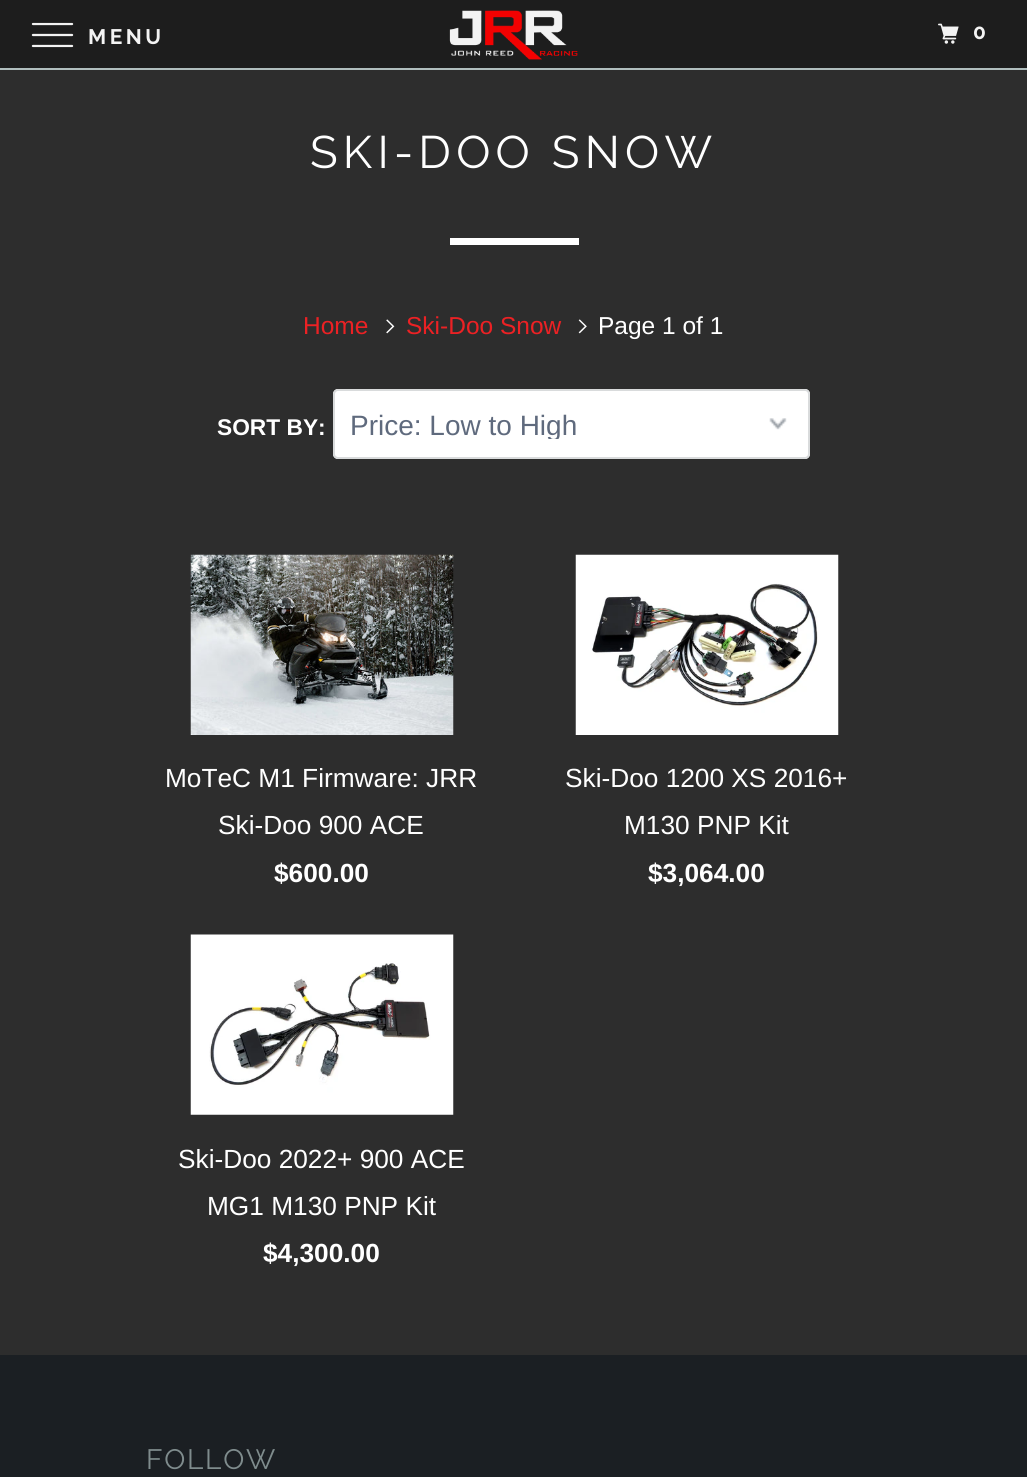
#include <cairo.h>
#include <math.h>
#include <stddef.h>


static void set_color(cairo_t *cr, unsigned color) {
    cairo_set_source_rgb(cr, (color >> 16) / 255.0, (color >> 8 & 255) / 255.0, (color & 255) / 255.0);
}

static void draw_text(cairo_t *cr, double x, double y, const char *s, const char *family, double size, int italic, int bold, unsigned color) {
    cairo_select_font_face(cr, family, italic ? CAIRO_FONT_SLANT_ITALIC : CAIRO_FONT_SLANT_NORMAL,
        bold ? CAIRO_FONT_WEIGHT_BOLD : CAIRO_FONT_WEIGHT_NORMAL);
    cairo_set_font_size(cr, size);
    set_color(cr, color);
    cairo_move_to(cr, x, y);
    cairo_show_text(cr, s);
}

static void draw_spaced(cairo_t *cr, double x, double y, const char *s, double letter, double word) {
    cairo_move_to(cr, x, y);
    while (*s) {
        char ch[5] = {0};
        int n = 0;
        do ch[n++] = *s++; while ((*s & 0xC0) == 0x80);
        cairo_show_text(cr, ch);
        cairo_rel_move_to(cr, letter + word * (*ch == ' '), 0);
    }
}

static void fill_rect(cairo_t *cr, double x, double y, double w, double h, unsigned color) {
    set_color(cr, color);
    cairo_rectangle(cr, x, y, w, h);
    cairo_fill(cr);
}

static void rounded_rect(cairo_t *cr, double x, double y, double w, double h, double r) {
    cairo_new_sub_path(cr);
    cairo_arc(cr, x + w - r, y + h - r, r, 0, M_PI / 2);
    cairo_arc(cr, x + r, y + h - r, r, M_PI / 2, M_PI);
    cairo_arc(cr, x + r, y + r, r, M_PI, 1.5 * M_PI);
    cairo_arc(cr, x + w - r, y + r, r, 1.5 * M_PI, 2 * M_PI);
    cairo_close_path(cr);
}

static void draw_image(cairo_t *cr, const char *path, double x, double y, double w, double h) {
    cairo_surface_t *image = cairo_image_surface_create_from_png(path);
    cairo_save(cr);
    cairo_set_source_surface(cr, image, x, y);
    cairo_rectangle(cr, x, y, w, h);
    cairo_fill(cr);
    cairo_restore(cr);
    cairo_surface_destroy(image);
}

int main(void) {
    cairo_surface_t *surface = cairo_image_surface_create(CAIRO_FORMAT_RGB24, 1027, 1477);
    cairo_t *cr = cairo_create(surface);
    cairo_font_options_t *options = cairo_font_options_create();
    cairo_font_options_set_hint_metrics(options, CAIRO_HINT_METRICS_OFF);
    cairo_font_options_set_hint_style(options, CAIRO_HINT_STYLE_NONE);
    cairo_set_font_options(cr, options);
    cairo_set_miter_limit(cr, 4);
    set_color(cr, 0x2D2D2D);
    cairo_paint(cr);
    fill_rect(cr, 0, 0, 1027, 68, 0x1D1D1D);
    fill_rect(cr, 0, 68, 1027, 2, 0xB0BEBE);
    draw_image(cr, "assets/img1.png", 31, 22, 43, 26);
    cairo_select_font_face(cr, "Raleway", CAIRO_FONT_SLANT_NORMAL, CAIRO_FONT_WEIGHT_BOLD);
    cairo_set_font_size(cr, 21);
    set_color(cr, 0xF4F4F4);
    draw_spaced(cr, 88, 44, "MENU", 3.5, 0);
    draw_image(cr, "assets/img2.png", 449, 10, 129, 50);
    draw_image(cr, "assets/img3.png", 938, 23, 21, 21);
    draw_spaced(cr, 973, 39, "0", 3.5, 0);
    cairo_select_font_face(cr, "Raleway", CAIRO_FONT_SLANT_NORMAL, CAIRO_FONT_WEIGHT_NORMAL);
    cairo_set_font_size(cr, 45.5);
    set_color(cr, 0xFFFFFF);
    draw_spaced(cr, 310, 168, "SKI-DOO SNOW", 5.25, 0);
    fill_rect(cr, 450, 238, 129, 7, 0xFFFFFF);
    draw_text(cr, 303, 334, "Home", "Liberation Sans", 24.5, 0, 0, 0xEC2124);
    draw_image(cr, "assets/img4.png", 386, 319, 9, 15);
    draw_text(cr, 406, 334, "Ski-Doo Snow", "Liberation Sans", 24.5, 0, 0, 0xEC2124);
    draw_image(cr, "assets/img5.png", 578, 319, 9, 15);
    draw_text(cr, 598, 334, "Page 1 of 1", "Liberation Sans", 24.5, 0, 0, 0xFFFFFF);
    draw_text(cr, 217, 435, "SORT BY:", "Liberation Sans", 22.75, 0, 1, 0xFFFFFF);
    rounded_rect(cr, 333, 389, 477, 70, 5);
    cairo_fill(cr);
    draw_image(cr, "assets/img6.png", 769, 418, 18, 12);
    rounded_rect(cr, 334, 390, 475, 68, 4);
    set_color(cr, 0xD9DBDC);
    cairo_stroke(cr);
    cairo_save(cr);
    cairo_rectangle(cr, 350, 410, 443, 29);
    cairo_clip(cr);
    draw_text(cr, 350, 435, "Price: Low to High", "Liberation Sans", 28, 0, 0, 0x5F6A7D);
    cairo_restore(cr);
    draw_image(cr, "assets/img7.png", 190, 554, 264, 181);
    draw_text(cr, 165, 787, "MoTeC M1 Firmware: JRR", "Liberation Sans", 26.25, 0, 0, 0xFFFFFF);
    draw_text(cr, 218, 834, "Ski-Doo 900 ACE", "Liberation Sans", 26.25, 0, 0, 0xFFFFFF);
    draw_text(cr, 274, 882, "$600.00", "Liberation Sans", 26.25, 0, 1, 0xFFFFFF);
    draw_image(cr, "assets/img8.png", 575, 554, 264, 181);
    draw_text(cr, 565, 787, "Ski-Doo 1200 XS 2016+", "Liberation Sans", 26.25, 0, 0, 0xFFFFFF);
    draw_text(cr, 624, 834, "M130 PNP Kit", "Liberation Sans", 26.25, 0, 0, 0xFFFFFF);
    draw_text(cr, 648, 882, "$3,064.00", "Liberation Sans", 26.25, 0, 1, 0xFFFFFF);
    draw_image(cr, "assets/img9.png", 190, 934, 264, 181);
    draw_text(cr, 178, 1168, "Ski-Doo 2022+ 900 ACE", "Liberation Sans", 26.25, 0, 0, 0xFFFFFF);
    draw_text(cr, 207, 1215, "MG1 M130 PNP Kit", "Liberation Sans", 26.25, 0, 0, 0xFFFFFF);
    draw_text(cr, 263, 1262, "$4,300.00", "Liberation Sans", 26.25, 0, 1, 0xFFFFFF);
    fill_rect(cr, 0, 1355, 1027, 122, 0x1B1F23);
    cairo_select_font_face(cr, "Raleway", CAIRO_FONT_SLANT_NORMAL, CAIRO_FONT_WEIGHT_NORMAL);
    cairo_set_font_size(cr, 28);
    set_color(cr, 0x7F8C8D);
    draw_spaced(cr, 146, 1469, "FOLLOW", 1.75, 0);
    cairo_surface_write_to_png(surface, "output.png");
    cairo_font_options_destroy(options);
    cairo_destroy(cr);
    cairo_surface_destroy(surface);
    return 0;
}
